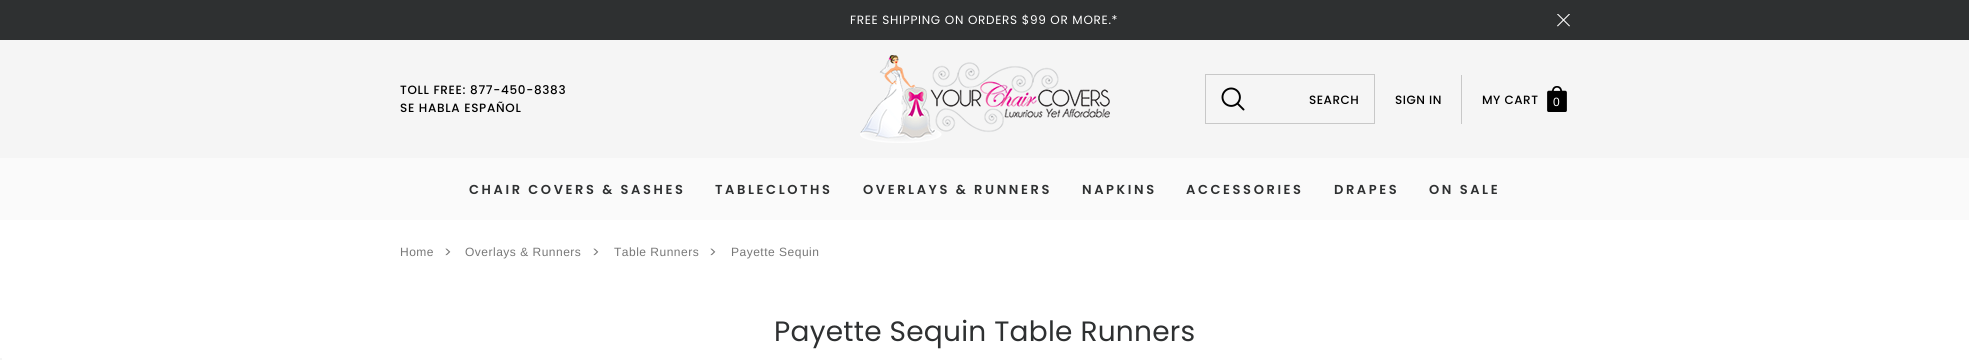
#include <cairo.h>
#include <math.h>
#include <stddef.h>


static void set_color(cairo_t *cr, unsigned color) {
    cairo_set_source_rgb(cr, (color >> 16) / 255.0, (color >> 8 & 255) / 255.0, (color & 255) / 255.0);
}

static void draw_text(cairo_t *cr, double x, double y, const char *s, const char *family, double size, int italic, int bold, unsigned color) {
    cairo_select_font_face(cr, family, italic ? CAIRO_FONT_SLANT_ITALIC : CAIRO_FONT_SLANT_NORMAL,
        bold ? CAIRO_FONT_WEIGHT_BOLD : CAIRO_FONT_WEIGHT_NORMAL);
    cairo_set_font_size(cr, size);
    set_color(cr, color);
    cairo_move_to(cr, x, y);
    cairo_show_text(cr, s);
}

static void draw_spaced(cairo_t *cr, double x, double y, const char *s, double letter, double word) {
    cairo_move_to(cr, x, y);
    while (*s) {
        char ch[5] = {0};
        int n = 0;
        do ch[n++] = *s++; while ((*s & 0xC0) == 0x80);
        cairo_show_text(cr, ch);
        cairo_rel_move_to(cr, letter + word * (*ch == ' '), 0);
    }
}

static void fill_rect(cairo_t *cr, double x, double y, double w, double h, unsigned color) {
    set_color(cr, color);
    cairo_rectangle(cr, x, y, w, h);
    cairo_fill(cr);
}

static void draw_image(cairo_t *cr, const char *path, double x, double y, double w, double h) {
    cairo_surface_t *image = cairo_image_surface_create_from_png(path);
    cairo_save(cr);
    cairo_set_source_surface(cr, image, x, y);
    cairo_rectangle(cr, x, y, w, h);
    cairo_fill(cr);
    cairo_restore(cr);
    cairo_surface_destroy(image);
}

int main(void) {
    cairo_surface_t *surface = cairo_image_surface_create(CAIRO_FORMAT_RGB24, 1969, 360);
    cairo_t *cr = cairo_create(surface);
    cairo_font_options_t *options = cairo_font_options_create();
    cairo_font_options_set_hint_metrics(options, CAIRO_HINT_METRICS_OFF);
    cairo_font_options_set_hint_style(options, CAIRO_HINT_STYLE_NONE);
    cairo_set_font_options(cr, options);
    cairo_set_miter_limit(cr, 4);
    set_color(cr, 0xFFFFFF);
    cairo_paint(cr);
    fill_rect(cr, 0, 40, 1969, 118, 0xF5F5F5);
    fill_rect(cr, 0, 0, 1969, 40, 0x2E3031);
    cairo_select_font_face(cr, "Poppins", CAIRO_FONT_SLANT_NORMAL, CAIRO_FONT_WEIGHT_NORMAL);
    cairo_set_font_size(cr, 12);
    set_color(cr, 0xFFFFFF);
    draw_spaced(cr, 850, 24, "FREE SHIPPING ON ORDERS $99 OR MORE.*", 0.7, 0);
    draw_image(cr, "assets/img1.png", 1557, 14, 13, 13);
    cairo_select_font_face(cr, "Poppins Medium", CAIRO_FONT_SLANT_NORMAL, CAIRO_FONT_WEIGHT_NORMAL);
    set_color(cr, 0x000000);
    draw_spaced(cr, 400, 94, "TOLL FREE: 877-450-8383", 0.7, 0);
    draw_spaced(cr, 400, 112, "SE HABLA ESPAÑOL", 0.7, 0);
    draw_image(cr, "assets/img2.png", 860, 55, 250, 88);
    cairo_rectangle(cr, 1205.5, 74.5, 169, 49);
    set_color(cr, 0xC8C8C8);
    cairo_set_line_width(cr, 1);
    cairo_stroke(cr);
    draw_image(cr, "assets/img3.png", 1221, 87, 24, 24);
    set_color(cr, 0x000000);
    draw_spaced(cr, 1309, 104, "SEARCH", 0.5, 0);
    draw_spaced(cr, 1395, 104, "SIGN IN", 0.5, 0);
    fill_rect(cr, 1461, 75, 1, 49, 0xC8C8C8);
    set_color(cr, 0x000000);
    draw_spaced(cr, 1482, 104, "MY CART", 0.5, 0);
    draw_image(cr, "assets/img4.png", 1547, 86, 20, 26);
    draw_text(cr, 1553, 106, "0", "Arimo", 12, 0, 0, 0xFFFFFF);
    fill_rect(cr, 0, 158, 1969, 62, 0xFAFAFA);
    cairo_select_font_face(cr, "Poppins SemiBold", CAIRO_FONT_SLANT_NORMAL, CAIRO_FONT_WEIGHT_NORMAL);
    cairo_set_font_size(cr, 13);
    set_color(cr, 0x2E3031);
    draw_spaced(cr, 469, 194, "CHAIR COVERS & SASHES", 2.6, 0);
    draw_spaced(cr, 715, 194, "TABLECLOTHS", 2.6, 0);
    draw_spaced(cr, 863, 194, "OVERLAYS & RUNNERS", 2.6, 0);
    draw_spaced(cr, 1082, 194, "NAPKINS", 2.6, 0);
    draw_spaced(cr, 1186, 194, "ACCESSORIES", 2.6, 0);
    draw_spaced(cr, 1334, 194, "DRAPES", 2.6, 0);
    draw_spaced(cr, 1429, 194, "ON SALE", 2.6, 0);
    cairo_select_font_face(cr, "Arimo", CAIRO_FONT_SLANT_NORMAL, CAIRO_FONT_WEIGHT_NORMAL);
    cairo_set_font_size(cr, 12);
    set_color(cr, 0x787878);
    draw_spaced(cr, 400, 256, "Home", 0.5, 0);
    cairo_select_font_face(cr, "Poppins", CAIRO_FONT_SLANT_NORMAL, CAIRO_FONT_WEIGHT_NORMAL);
    cairo_set_font_size(cr, 14);
    draw_spaced(cr, 444, 257, ">", 0.5, 0);
    cairo_select_font_face(cr, "Arimo", CAIRO_FONT_SLANT_NORMAL, CAIRO_FONT_WEIGHT_NORMAL);
    cairo_set_font_size(cr, 12);
    draw_spaced(cr, 465, 256, "Overlays & Runners", 0.5, 0);
    cairo_select_font_face(cr, "Poppins", CAIRO_FONT_SLANT_NORMAL, CAIRO_FONT_WEIGHT_NORMAL);
    cairo_set_font_size(cr, 14);
    draw_spaced(cr, 592, 257, ">", 0.5, 0);
    cairo_select_font_face(cr, "Arimo", CAIRO_FONT_SLANT_NORMAL, CAIRO_FONT_WEIGHT_NORMAL);
    cairo_set_font_size(cr, 12);
    draw_spaced(cr, 614, 256, "Table Runners", 0.5, 0);
    cairo_select_font_face(cr, "Poppins", CAIRO_FONT_SLANT_NORMAL, CAIRO_FONT_WEIGHT_NORMAL);
    cairo_set_font_size(cr, 14);
    draw_spaced(cr, 709, 257, ">", 0.5, 0);
    cairo_select_font_face(cr, "Arimo", CAIRO_FONT_SLANT_NORMAL, CAIRO_FONT_WEIGHT_NORMAL);
    cairo_set_font_size(cr, 12);
    draw_spaced(cr, 731, 256, "Payette Sequin", 0.5, 0);
    cairo_select_font_face(cr, "Poppins", CAIRO_FONT_SLANT_NORMAL, CAIRO_FONT_WEIGHT_NORMAL);
    cairo_set_font_size(cr, 28);
    set_color(cr, 0x2E3031);
    draw_spaced(cr, 774, 341, "Payette Sequin Table Runners", 0.25, 0);
    fill_rect(cr, 0, 358, 2, 2, 0xF5F5F5);
    cairo_surface_write_to_png(surface, "output.png");
    cairo_font_options_destroy(options);
    cairo_destroy(cr);
    cairo_surface_destroy(surface);
    return 0;
}
